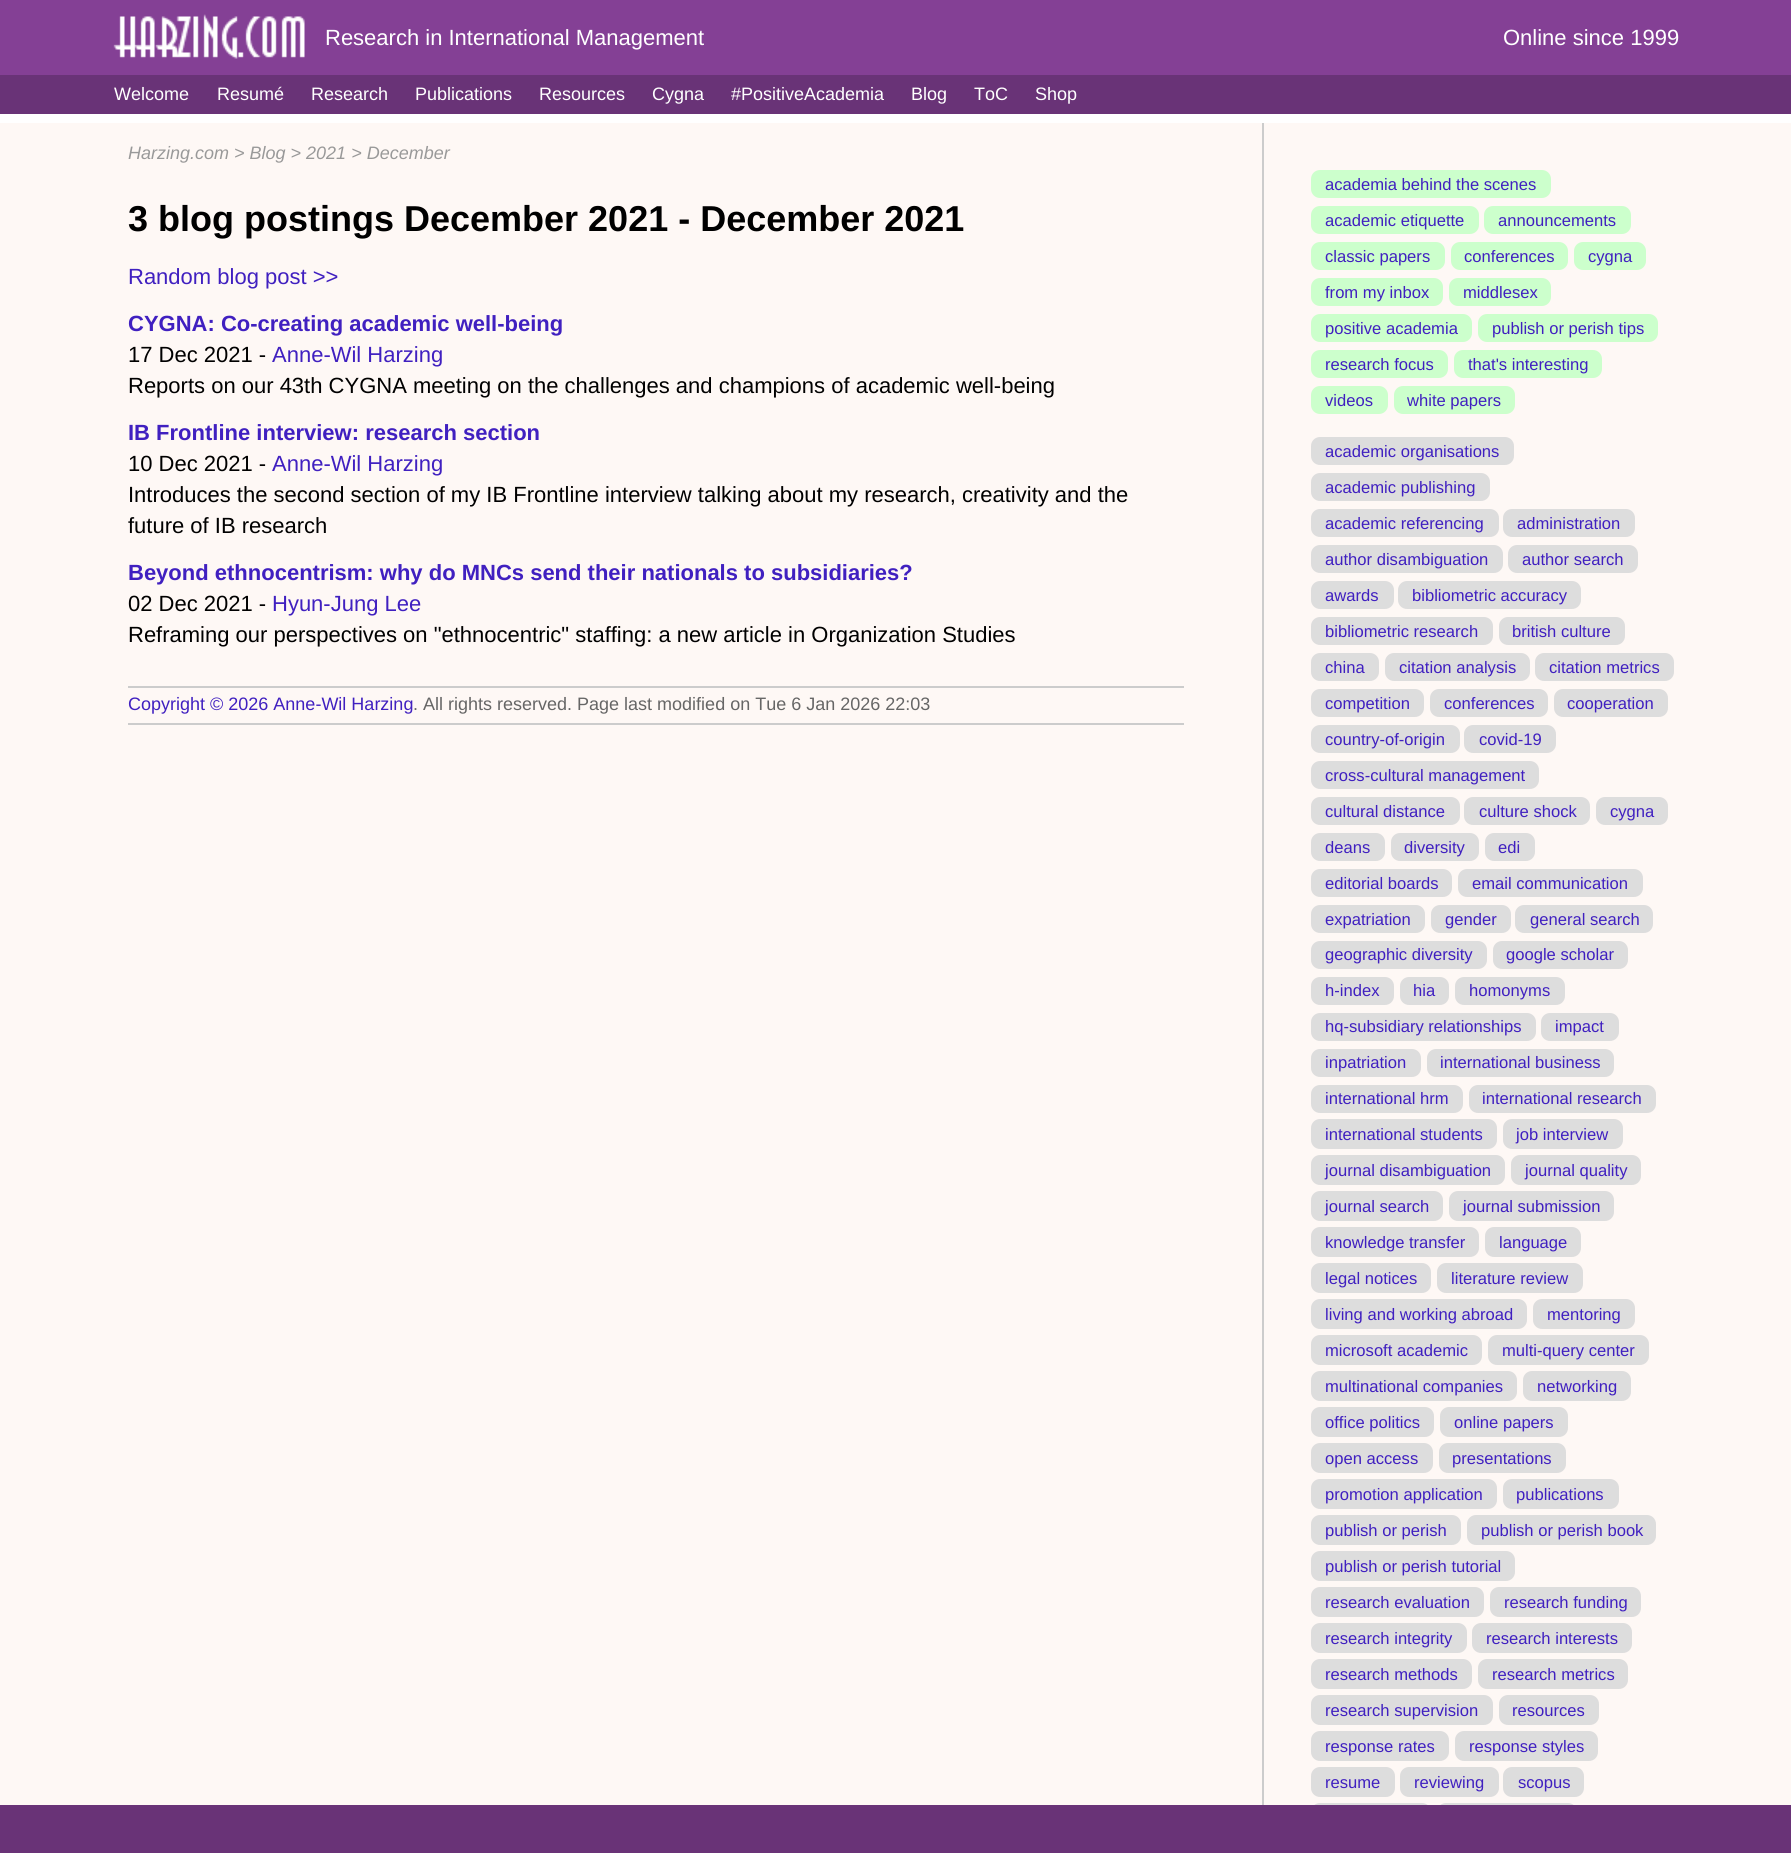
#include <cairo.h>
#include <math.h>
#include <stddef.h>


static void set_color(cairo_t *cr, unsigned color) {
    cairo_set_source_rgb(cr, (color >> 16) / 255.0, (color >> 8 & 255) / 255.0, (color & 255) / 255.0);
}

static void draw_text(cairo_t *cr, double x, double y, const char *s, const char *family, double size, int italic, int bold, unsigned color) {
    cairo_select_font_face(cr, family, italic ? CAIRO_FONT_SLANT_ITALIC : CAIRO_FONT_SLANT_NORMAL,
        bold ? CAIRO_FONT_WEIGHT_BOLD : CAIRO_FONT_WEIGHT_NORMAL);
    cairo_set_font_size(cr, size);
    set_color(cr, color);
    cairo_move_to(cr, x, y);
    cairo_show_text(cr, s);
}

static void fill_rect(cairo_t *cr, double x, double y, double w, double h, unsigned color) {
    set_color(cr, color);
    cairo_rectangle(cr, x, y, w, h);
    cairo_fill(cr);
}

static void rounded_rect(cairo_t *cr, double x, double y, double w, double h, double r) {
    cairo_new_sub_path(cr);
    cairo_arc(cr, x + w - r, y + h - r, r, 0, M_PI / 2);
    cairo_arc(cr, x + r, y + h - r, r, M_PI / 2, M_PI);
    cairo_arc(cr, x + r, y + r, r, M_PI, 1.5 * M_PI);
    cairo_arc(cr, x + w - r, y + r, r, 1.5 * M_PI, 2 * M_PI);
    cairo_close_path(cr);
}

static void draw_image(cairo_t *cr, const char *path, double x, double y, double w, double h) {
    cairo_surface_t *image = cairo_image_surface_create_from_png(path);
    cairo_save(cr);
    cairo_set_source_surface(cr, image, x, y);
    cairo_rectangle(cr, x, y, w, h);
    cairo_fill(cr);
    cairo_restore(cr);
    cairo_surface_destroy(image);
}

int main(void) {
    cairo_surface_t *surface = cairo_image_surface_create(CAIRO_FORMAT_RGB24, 1791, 1853);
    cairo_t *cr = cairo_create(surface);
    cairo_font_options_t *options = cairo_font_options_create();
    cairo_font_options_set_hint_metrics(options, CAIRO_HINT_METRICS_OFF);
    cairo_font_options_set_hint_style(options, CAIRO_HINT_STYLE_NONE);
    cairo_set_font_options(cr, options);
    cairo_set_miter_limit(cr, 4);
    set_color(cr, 0xFFFFFF);
    cairo_paint(cr);
    fill_rect(cr, 0, 0, 1791, 75, 0x844095);
    draw_image(cr, "assets/img1.png", 113, 14, 192, 45);
    draw_text(cr, 325, 45, "Research in International Management", "Liberation Sans", 22, 0, 0, 0xFFFFFF);
    draw_text(cr, 1503, 45, "Online since 1999", "Liberation Sans", 22, 0, 0, 0xFFFFFF);
    fill_rect(cr, 0, 75, 1791, 39, 0x693377);
    draw_text(cr, 114, 100, "Welcome", "Liberation Sans", 18, 0, 0, 0xFFFFFF);
    draw_text(cr, 217, 100, "Resumé", "Liberation Sans", 18, 0, 0, 0xFFFFFF);
    draw_text(cr, 311, 100, "Research", "Liberation Sans", 18, 0, 0, 0xFFFFFF);
    draw_text(cr, 415, 100, "Publications", "Liberation Sans", 18, 0, 0, 0xFFFFFF);
    draw_text(cr, 539, 100, "Resources", "Liberation Sans", 18, 0, 0, 0xFFFFFF);
    draw_text(cr, 652, 100, "Cygna", "Liberation Sans", 18, 0, 0, 0xFFFFFF);
    draw_text(cr, 731, 100, "#PositiveAcademia", "Liberation Sans", 18, 0, 0, 0xFFFFFF);
    draw_text(cr, 911, 100, "Blog", "Liberation Sans", 18, 0, 0, 0xFFFFFF);
    draw_text(cr, 974, 100, "ToC", "Liberation Sans", 18, 0, 0, 0xFFFFFF);
    draw_text(cr, 1035, 100, "Shop", "Liberation Sans", 18, 0, 0, 0xFFFFFF);
    fill_rect(cr, 0, 123, 1791, 1682, 0xFEF8F5);
    draw_text(cr, 128, 159, "Harzing.com > Blog > 2021 > December", "Liberation Sans", 18, 1, 0, 0x999999);
    draw_text(cr, 128, 231, "3 blog postings December 2021 - December 2021", "Liberation Sans", 36, 0, 1, 0x000000);
    draw_text(cr, 128, 284, "Random blog post >>", "Liberation Sans", 22, 0, 0, 0x4020C0);
    draw_text(cr, 128, 331, "CYGNA: Co-creating academic well-being", "Liberation Sans", 22, 0, 1, 0x4020C0);
    draw_text(cr, 128, 362, "17 Dec 2021 -", "Liberation Sans", 22, 0, 0, 0x000000);
    draw_text(cr, 272, 362, "Anne-Wil Harzing", "Liberation Sans", 22, 0, 0, 0x4020C0);
    draw_text(cr, 128, 393, "Reports on our 43th CYGNA meeting on the challenges and champions of academic well-being", "Liberation Sans", 22, 0, 0, 0x000000);
    draw_text(cr, 128, 440, "IB Frontline interview: research section", "Liberation Sans", 22, 0, 1, 0x4020C0);
    draw_text(cr, 128, 471, "10 Dec 2021 -", "Liberation Sans", 22, 0, 0, 0x000000);
    draw_text(cr, 272, 471, "Anne-Wil Harzing", "Liberation Sans", 22, 0, 0, 0x4020C0);
    draw_text(cr, 128, 502, "Introduces the second section of my IB Frontline interview talking about my research, creativity and the", "Liberation Sans", 22, 0, 0, 0x000000);
    draw_text(cr, 128, 533, "future of IB research", "Liberation Sans", 22, 0, 0, 0x000000);
    draw_text(cr, 128, 580, "Beyond ethnocentrism: why do MNCs send their nationals to subsidiaries?", "Liberation Sans", 22, 0, 1, 0x4020C0);
    draw_text(cr, 128, 611, "02 Dec 2021 -", "Liberation Sans", 22, 0, 0, 0x000000);
    draw_text(cr, 272, 611, "Hyun-Jung Lee", "Liberation Sans", 22, 0, 0, 0x4020C0);
    draw_text(cr, 128, 642, "Reframing our perspectives on \"ethnocentric\" staffing: a new article in Organization Studies", "Liberation Sans", 22, 0, 0, 0x000000);
    fill_rect(cr, 128, 686, 1056, 2, 0xCCCCCC);
    fill_rect(cr, 128, 723, 1056, 2, 0xCCCCCC);
    draw_text(cr, 128, 710, "Copyright © 2026 Anne-Wil Harzing", "Liberation Sans", 18, 0, 0, 0x4020C0);
    draw_text(cr, 413, 710, ". All rights reserved. Page last modified on Tue 6 Jan 2026 22:03", "Liberation Sans", 18, 0, 0, 0x666666);
    fill_rect(cr, 1262, 123, 2, 1682, 0xCCCCCC);
    set_color(cr, 0xCCFFCC);
    rounded_rect(cr, 1312, 171, 238, 26, 8);
    cairo_fill_preserve(cr);
    cairo_stroke(cr);
    draw_text(cr, 1325, 190, "academia behind the scenes", "Liberation Sans", 16.6, 0, 0, 0x4020C0);
    set_color(cr, 0xCCFFCC);
    rounded_rect(cr, 1312, 207, 166, 26, 8);
    cairo_fill_preserve(cr);
    cairo_stroke(cr);
    draw_text(cr, 1325, 226, "academic etiquette", "Liberation Sans", 16.6, 0, 0, 0x4020C0);
    set_color(cr, 0xCCFFCC);
    rounded_rect(cr, 1485, 207, 145, 26, 8);
    cairo_fill_preserve(cr);
    cairo_stroke(cr);
    draw_text(cr, 1498, 226, "announcements", "Liberation Sans", 16.6, 0, 0, 0x4020C0);
    set_color(cr, 0xCCFFCC);
    rounded_rect(cr, 1312, 243, 132, 26, 8);
    cairo_fill_preserve(cr);
    cairo_stroke(cr);
    draw_text(cr, 1325, 262, "classic papers", "Liberation Sans", 16.6, 0, 0, 0x4020C0);
    set_color(cr, 0xCCFFCC);
    rounded_rect(cr, 1452, 243, 115, 26, 8);
    cairo_fill_preserve(cr);
    cairo_stroke(cr);
    draw_text(cr, 1464, 262, "conferences", "Liberation Sans", 16.6, 0, 0, 0x4020C0);
    set_color(cr, 0xCCFFCC);
    rounded_rect(cr, 1575, 243, 70, 26, 8);
    cairo_fill_preserve(cr);
    cairo_stroke(cr);
    draw_text(cr, 1588, 262, "cygna", "Liberation Sans", 16.6, 0, 0, 0x4020C0);
    set_color(cr, 0xCCFFCC);
    rounded_rect(cr, 1312, 279, 130, 26, 8);
    cairo_fill_preserve(cr);
    cairo_stroke(cr);
    draw_text(cr, 1325, 298, "from my inbox", "Liberation Sans", 16.6, 0, 0, 0x4020C0);
    set_color(cr, 0xCCFFCC);
    rounded_rect(cr, 1450, 279, 100, 26, 8);
    cairo_fill_preserve(cr);
    cairo_stroke(cr);
    draw_text(cr, 1463, 298, "middlesex", "Liberation Sans", 16.6, 0, 0, 0x4020C0);
    set_color(cr, 0xCCFFCC);
    rounded_rect(cr, 1312, 315, 159, 26, 8);
    cairo_fill_preserve(cr);
    cairo_stroke(cr);
    draw_text(cr, 1325, 334, "positive academia", "Liberation Sans", 16.6, 0, 0, 0x4020C0);
    set_color(cr, 0xCCFFCC);
    rounded_rect(cr, 1479, 315, 178, 26, 8);
    cairo_fill_preserve(cr);
    cairo_stroke(cr);
    draw_text(cr, 1492, 334, "publish or perish tips", "Liberation Sans", 16.6, 0, 0, 0x4020C0);
    set_color(cr, 0xCCFFCC);
    rounded_rect(cr, 1312, 351, 135, 26, 8);
    cairo_fill_preserve(cr);
    cairo_stroke(cr);
    draw_text(cr, 1325, 370, "research focus", "Liberation Sans", 16.6, 0, 0, 0x4020C0);
    set_color(cr, 0xCCFFCC);
    rounded_rect(cr, 1455, 351, 146, 26, 8);
    cairo_fill_preserve(cr);
    cairo_stroke(cr);
    draw_text(cr, 1468, 370, "that's interesting", "Liberation Sans", 16.6, 0, 0, 0x4020C0);
    set_color(cr, 0xCCFFCC);
    rounded_rect(cr, 1312, 387, 75, 26, 8);
    cairo_fill_preserve(cr);
    cairo_stroke(cr);
    draw_text(cr, 1325, 406, "videos", "Liberation Sans", 16.6, 0, 0, 0x4020C0);
    set_color(cr, 0xCCFFCC);
    rounded_rect(cr, 1395, 387, 119, 26, 8);
    cairo_fill_preserve(cr);
    cairo_stroke(cr);
    draw_text(cr, 1407, 406, "white papers", "Liberation Sans", 16.6, 0, 0, 0x4020C0);
    set_color(cr, 0xDDDDDD);
    rounded_rect(cr, 1312, 438, 201, 26, 8);
    cairo_fill_preserve(cr);
    cairo_stroke(cr);
    draw_text(cr, 1325, 457, "academic organisations", "Liberation Sans", 16.6, 0, 0, 0x4020C0);
    set_color(cr, 0xDDDDDD);
    rounded_rect(cr, 1312, 474, 177, 26, 8);
    cairo_fill_preserve(cr);
    cairo_stroke(cr);
    draw_text(cr, 1325, 493, "academic publishing", "Liberation Sans", 16.6, 0, 0, 0x4020C0);
    set_color(cr, 0xDDDDDD);
    rounded_rect(cr, 1312, 510, 186, 26, 8);
    cairo_fill_preserve(cr);
    cairo_stroke(cr);
    draw_text(cr, 1325, 529, "academic referencing", "Liberation Sans", 16.6, 0, 0, 0x4020C0);
    set_color(cr, 0xDDDDDD);
    rounded_rect(cr, 1504, 510, 130, 26, 8);
    cairo_fill_preserve(cr);
    cairo_stroke(cr);
    draw_text(cr, 1517, 529, "administration", "Liberation Sans", 16.6, 0, 0, 0x4020C0);
    set_color(cr, 0xDDDDDD);
    rounded_rect(cr, 1312, 546, 190, 26, 8);
    cairo_fill_preserve(cr);
    cairo_stroke(cr);
    draw_text(cr, 1325, 565, "author disambiguation", "Liberation Sans", 16.6, 0, 0, 0x4020C0);
    set_color(cr, 0xDDDDDD);
    rounded_rect(cr, 1509, 546, 128, 26, 8);
    cairo_fill_preserve(cr);
    cairo_stroke(cr);
    draw_text(cr, 1522, 565, "author search", "Liberation Sans", 16.6, 0, 0, 0x4020C0);
    set_color(cr, 0xDDDDDD);
    rounded_rect(cr, 1312, 582, 81, 26, 8);
    cairo_fill_preserve(cr);
    cairo_stroke(cr);
    draw_text(cr, 1325, 601, "awards", "Liberation Sans", 16.6, 0, 0, 0x4020C0);
    set_color(cr, 0xDDDDDD);
    rounded_rect(cr, 1399, 582, 181, 26, 8);
    cairo_fill_preserve(cr);
    cairo_stroke(cr);
    draw_text(cr, 1412, 601, "bibliometric accuracy", "Liberation Sans", 16.6, 0, 0, 0x4020C0);
    set_color(cr, 0xDDDDDD);
    rounded_rect(cr, 1312, 618, 180, 26, 8);
    cairo_fill_preserve(cr);
    cairo_stroke(cr);
    draw_text(cr, 1325, 637, "bibliometric research", "Liberation Sans", 16.6, 0, 0, 0x4020C0);
    set_color(cr, 0xDDDDDD);
    rounded_rect(cr, 1500, 618, 124, 26, 8);
    cairo_fill_preserve(cr);
    cairo_stroke(cr);
    draw_text(cr, 1512, 637, "british culture", "Liberation Sans", 16.6, 0, 0, 0x4020C0);
    set_color(cr, 0xDDDDDD);
    rounded_rect(cr, 1312, 654, 66, 26, 8);
    cairo_fill_preserve(cr);
    cairo_stroke(cr);
    draw_text(cr, 1325, 673, "china", "Liberation Sans", 16.6, 0, 0, 0x4020C0);
    set_color(cr, 0xDDDDDD);
    rounded_rect(cr, 1386, 654, 143, 26, 8);
    cairo_fill_preserve(cr);
    cairo_stroke(cr);
    draw_text(cr, 1399, 673, "citation analysis", "Liberation Sans", 16.6, 0, 0, 0x4020C0);
    set_color(cr, 0xDDDDDD);
    rounded_rect(cr, 1536, 654, 137, 26, 8);
    cairo_fill_preserve(cr);
    cairo_stroke(cr);
    draw_text(cr, 1549, 673, "citation metrics", "Liberation Sans", 16.6, 0, 0, 0x4020C0);
    set_color(cr, 0xDDDDDD);
    rounded_rect(cr, 1312, 690, 111, 26, 8);
    cairo_fill_preserve(cr);
    cairo_stroke(cr);
    draw_text(cr, 1325, 709, "competition", "Liberation Sans", 16.6, 0, 0, 0x4020C0);
    set_color(cr, 0xDDDDDD);
    rounded_rect(cr, 1431, 690, 116, 26, 8);
    cairo_fill_preserve(cr);
    cairo_stroke(cr);
    draw_text(cr, 1444, 709, "conferences", "Liberation Sans", 16.6, 0, 0, 0x4020C0);
    set_color(cr, 0xDDDDDD);
    rounded_rect(cr, 1555, 690, 112, 26, 8);
    cairo_fill_preserve(cr);
    cairo_stroke(cr);
    draw_text(cr, 1567, 709, "cooperation", "Liberation Sans", 16.6, 0, 0, 0x4020C0);
    set_color(cr, 0xDDDDDD);
    rounded_rect(cr, 1312, 726, 147, 26, 8);
    cairo_fill_preserve(cr);
    cairo_stroke(cr);
    draw_text(cr, 1325, 745, "country-of-origin", "Liberation Sans", 16.6, 0, 0, 0x4020C0);
    set_color(cr, 0xDDDDDD);
    rounded_rect(cr, 1465, 726, 90, 26, 8);
    cairo_fill_preserve(cr);
    cairo_stroke(cr);
    draw_text(cr, 1479, 745, "covid-19", "Liberation Sans", 16.6, 0, 0, 0x4020C0);
    set_color(cr, 0xDDDDDD);
    rounded_rect(cr, 1312, 762, 226, 26, 8);
    cairo_fill_preserve(cr);
    cairo_stroke(cr);
    draw_text(cr, 1325, 781, "cross-cultural management", "Liberation Sans", 16.6, 0, 0, 0x4020C0);
    set_color(cr, 0xDDDDDD);
    rounded_rect(cr, 1312, 798, 147, 26, 8);
    cairo_fill_preserve(cr);
    cairo_stroke(cr);
    draw_text(cr, 1325, 817, "cultural distance", "Liberation Sans", 16.6, 0, 0, 0x4020C0);
    set_color(cr, 0xDDDDDD);
    rounded_rect(cr, 1465, 798, 124, 26, 8);
    cairo_fill_preserve(cr);
    cairo_stroke(cr);
    draw_text(cr, 1479, 817, "culture shock", "Liberation Sans", 16.6, 0, 0, 0x4020C0);
    set_color(cr, 0xDDDDDD);
    rounded_rect(cr, 1597, 798, 70, 26, 8);
    cairo_fill_preserve(cr);
    cairo_stroke(cr);
    draw_text(cr, 1610, 817, "cygna", "Liberation Sans", 16.6, 0, 0, 0x4020C0);
    set_color(cr, 0xDDDDDD);
    rounded_rect(cr, 1312, 834, 72, 26, 8);
    cairo_fill_preserve(cr);
    cairo_stroke(cr);
    draw_text(cr, 1325, 853, "deans", "Liberation Sans", 16.6, 0, 0, 0x4020C0);
    set_color(cr, 0xDDDDDD);
    rounded_rect(cr, 1392, 834, 86, 26, 8);
    cairo_fill_preserve(cr);
    cairo_stroke(cr);
    draw_text(cr, 1404, 853, "diversity", "Liberation Sans", 16.6, 0, 0, 0x4020C0);
    set_color(cr, 0xDDDDDD);
    rounded_rect(cr, 1486, 834, 48, 26, 8);
    cairo_fill_preserve(cr);
    cairo_stroke(cr);
    draw_text(cr, 1498, 853, "edi", "Liberation Sans", 16.6, 0, 0, 0x4020C0);
    set_color(cr, 0xDDDDDD);
    rounded_rect(cr, 1312, 870, 139, 26, 8);
    cairo_fill_preserve(cr);
    cairo_stroke(cr);
    draw_text(cr, 1325, 889, "editorial boards", "Liberation Sans", 16.6, 0, 0, 0x4020C0);
    set_color(cr, 0xDDDDDD);
    rounded_rect(cr, 1459, 870, 183, 26, 8);
    cairo_fill_preserve(cr);
    cairo_stroke(cr);
    draw_text(cr, 1472, 889, "email communication", "Liberation Sans", 16.6, 0, 0, 0x4020C0);
    set_color(cr, 0xDDDDDD);
    rounded_rect(cr, 1312, 906, 112, 26, 8);
    cairo_fill_preserve(cr);
    cairo_stroke(cr);
    draw_text(cr, 1325, 925, "expatriation", "Liberation Sans", 16.6, 0, 0, 0x4020C0);
    set_color(cr, 0xDDDDDD);
    rounded_rect(cr, 1432, 906, 78, 26, 8);
    cairo_fill_preserve(cr);
    cairo_stroke(cr);
    draw_text(cr, 1445, 925, "gender", "Liberation Sans", 16.6, 0, 0, 0x4020C0);
    set_color(cr, 0xDDDDDD);
    rounded_rect(cr, 1516, 906, 136, 26, 8);
    cairo_fill_preserve(cr);
    cairo_stroke(cr);
    draw_text(cr, 1530, 925, "general search", "Liberation Sans", 16.6, 0, 0, 0x4020C0);
    set_color(cr, 0xDDDDDD);
    rounded_rect(cr, 1312, 942, 174, 26, 8);
    cairo_fill_preserve(cr);
    cairo_stroke(cr);
    draw_text(cr, 1325, 960, "geographic diversity", "Liberation Sans", 16.6, 0, 0, 0x4020C0);
    set_color(cr, 0xDDDDDD);
    rounded_rect(cr, 1494, 942, 133, 26, 8);
    cairo_fill_preserve(cr);
    cairo_stroke(cr);
    draw_text(cr, 1506, 960, "google scholar", "Liberation Sans", 16.6, 0, 0, 0x4020C0);
    set_color(cr, 0xDDDDDD);
    rounded_rect(cr, 1312, 978, 81, 26, 8);
    cairo_fill_preserve(cr);
    cairo_stroke(cr);
    draw_text(cr, 1325, 996, "h-index", "Liberation Sans", 16.6, 0, 0, 0x4020C0);
    set_color(cr, 0xDDDDDD);
    rounded_rect(cr, 1401, 978, 47, 26, 8);
    cairo_fill_preserve(cr);
    cairo_stroke(cr);
    draw_text(cr, 1413, 996, "hia", "Liberation Sans", 16.6, 0, 0, 0x4020C0);
    set_color(cr, 0xDDDDDD);
    rounded_rect(cr, 1456, 978, 108, 26, 8);
    cairo_fill_preserve(cr);
    cairo_stroke(cr);
    draw_text(cr, 1469, 996, "homonyms", "Liberation Sans", 16.6, 0, 0, 0x4020C0);
    set_color(cr, 0xDDDDDD);
    rounded_rect(cr, 1312, 1014, 223, 26, 8);
    cairo_fill_preserve(cr);
    cairo_stroke(cr);
    draw_text(cr, 1325, 1032, "hq-subsidiary relationships", "Liberation Sans", 16.6, 0, 0, 0x4020C0);
    set_color(cr, 0xDDDDDD);
    rounded_rect(cr, 1542, 1014, 76, 26, 8);
    cairo_fill_preserve(cr);
    cairo_stroke(cr);
    draw_text(cr, 1555, 1032, "impact", "Liberation Sans", 16.6, 0, 0, 0x4020C0);
    set_color(cr, 0xDDDDDD);
    rounded_rect(cr, 1312, 1050, 108, 26, 8);
    cairo_fill_preserve(cr);
    cairo_stroke(cr);
    draw_text(cr, 1325, 1068, "inpatriation", "Liberation Sans", 16.6, 0, 0, 0x4020C0);
    set_color(cr, 0xDDDDDD);
    rounded_rect(cr, 1428, 1050, 185, 26, 8);
    cairo_fill_preserve(cr);
    cairo_stroke(cr);
    draw_text(cr, 1440, 1068, "international business", "Liberation Sans", 16.6, 0, 0, 0x4020C0);
    set_color(cr, 0xDDDDDD);
    rounded_rect(cr, 1312, 1086, 150, 26, 8);
    cairo_fill_preserve(cr);
    cairo_stroke(cr);
    draw_text(cr, 1325, 1104, "international hrm", "Liberation Sans", 16.6, 0, 0, 0x4020C0);
    set_color(cr, 0xDDDDDD);
    rounded_rect(cr, 1470, 1086, 185, 26, 8);
    cairo_fill_preserve(cr);
    cairo_stroke(cr);
    draw_text(cr, 1482, 1104, "international research", "Liberation Sans", 16.6, 0, 0, 0x4020C0);
    set_color(cr, 0xDDDDDD);
    rounded_rect(cr, 1312, 1120, 184, 28, 8);
    cairo_fill_preserve(cr);
    cairo_stroke(cr);
    draw_text(cr, 1325, 1140, "international students", "Liberation Sans", 16.6, 0, 0, 0x4020C0);
    set_color(cr, 0xDDDDDD);
    rounded_rect(cr, 1504, 1120, 118, 28, 8);
    cairo_fill_preserve(cr);
    cairo_stroke(cr);
    draw_text(cr, 1516, 1140, "job interview", "Liberation Sans", 16.6, 0, 0, 0x4020C0);
    set_color(cr, 0xDDDDDD);
    rounded_rect(cr, 1312, 1156, 192, 28, 8);
    cairo_fill_preserve(cr);
    cairo_stroke(cr);
    draw_text(cr, 1325, 1176, "journal disambiguation", "Liberation Sans", 16.6, 0, 0, 0x4020C0);
    set_color(cr, 0xDDDDDD);
    rounded_rect(cr, 1512, 1156, 128, 28, 8);
    cairo_fill_preserve(cr);
    cairo_stroke(cr);
    draw_text(cr, 1525, 1176, "journal quality", "Liberation Sans", 16.6, 0, 0, 0x4020C0);
    set_color(cr, 0xDDDDDD);
    rounded_rect(cr, 1312, 1192, 130, 28, 8);
    cairo_fill_preserve(cr);
    cairo_stroke(cr);
    draw_text(cr, 1325, 1212, "journal search", "Liberation Sans", 16.6, 0, 0, 0x4020C0);
    set_color(cr, 0xDDDDDD);
    rounded_rect(cr, 1450, 1192, 163, 28, 8);
    cairo_fill_preserve(cr);
    cairo_stroke(cr);
    draw_text(cr, 1463, 1212, "journal submission", "Liberation Sans", 16.6, 0, 0, 0x4020C0);
    set_color(cr, 0xDDDDDD);
    rounded_rect(cr, 1312, 1228, 166, 28, 8);
    cairo_fill_preserve(cr);
    cairo_stroke(cr);
    draw_text(cr, 1325, 1248, "knowledge transfer", "Liberation Sans", 16.6, 0, 0, 0x4020C0);
    set_color(cr, 0xDDDDDD);
    rounded_rect(cr, 1486, 1228, 94, 28, 8);
    cairo_fill_preserve(cr);
    cairo_stroke(cr);
    draw_text(cr, 1499, 1248, "language", "Liberation Sans", 16.6, 0, 0, 0x4020C0);
    set_color(cr, 0xDDDDDD);
    rounded_rect(cr, 1312, 1264, 118, 28, 8);
    cairo_fill_preserve(cr);
    cairo_stroke(cr);
    draw_text(cr, 1325, 1284, "legal notices", "Liberation Sans", 16.6, 0, 0, 0x4020C0);
    set_color(cr, 0xDDDDDD);
    rounded_rect(cr, 1438, 1264, 144, 28, 8);
    cairo_fill_preserve(cr);
    cairo_stroke(cr);
    draw_text(cr, 1451, 1284, "literature review", "Liberation Sans", 16.6, 0, 0, 0x4020C0);
    set_color(cr, 0xDDDDDD);
    rounded_rect(cr, 1312, 1300, 214, 28, 8);
    cairo_fill_preserve(cr);
    cairo_stroke(cr);
    draw_text(cr, 1325, 1320, "living and working abroad", "Liberation Sans", 16.6, 0, 0, 0x4020C0);
    set_color(cr, 0xDDDDDD);
    rounded_rect(cr, 1534, 1300, 100, 28, 8);
    cairo_fill_preserve(cr);
    cairo_stroke(cr);
    draw_text(cr, 1547, 1320, "mentoring", "Liberation Sans", 16.6, 0, 0, 0x4020C0);
    set_color(cr, 0xDDDDDD);
    rounded_rect(cr, 1312, 1336, 169, 28, 8);
    cairo_fill_preserve(cr);
    cairo_stroke(cr);
    draw_text(cr, 1325, 1356, "microsoft academic", "Liberation Sans", 16.6, 0, 0, 0x4020C0);
    set_color(cr, 0xDDDDDD);
    rounded_rect(cr, 1489, 1336, 159, 28, 8);
    cairo_fill_preserve(cr);
    cairo_stroke(cr);
    draw_text(cr, 1502, 1356, "multi-query center", "Liberation Sans", 16.6, 0, 0, 0x4020C0);
    set_color(cr, 0xDDDDDD);
    rounded_rect(cr, 1312, 1372, 204, 28, 8);
    cairo_fill_preserve(cr);
    cairo_stroke(cr);
    draw_text(cr, 1325, 1392, "multinational companies", "Liberation Sans", 16.6, 0, 0, 0x4020C0);
    set_color(cr, 0xDDDDDD);
    rounded_rect(cr, 1524, 1372, 106, 28, 8);
    cairo_fill_preserve(cr);
    cairo_stroke(cr);
    draw_text(cr, 1537, 1392, "networking", "Liberation Sans", 16.6, 0, 0, 0x4020C0);
    set_color(cr, 0xDDDDDD);
    rounded_rect(cr, 1312, 1408, 121, 28, 8);
    cairo_fill_preserve(cr);
    cairo_stroke(cr);
    draw_text(cr, 1325, 1428, "office politics", "Liberation Sans", 16.6, 0, 0, 0x4020C0);
    set_color(cr, 0xDDDDDD);
    rounded_rect(cr, 1441, 1408, 126, 28, 8);
    cairo_fill_preserve(cr);
    cairo_stroke(cr);
    draw_text(cr, 1454, 1428, "online papers", "Liberation Sans", 16.6, 0, 0, 0x4020C0);
    set_color(cr, 0xDDDDDD);
    rounded_rect(cr, 1312, 1444, 120, 28, 8);
    cairo_fill_preserve(cr);
    cairo_stroke(cr);
    draw_text(cr, 1325, 1464, "open access", "Liberation Sans", 16.6, 0, 0, 0x4020C0);
    set_color(cr, 0xDDDDDD);
    rounded_rect(cr, 1440, 1444, 125, 28, 8);
    cairo_fill_preserve(cr);
    cairo_stroke(cr);
    draw_text(cr, 1452, 1464, "presentations", "Liberation Sans", 16.6, 0, 0, 0x4020C0);
    set_color(cr, 0xDDDDDD);
    rounded_rect(cr, 1312, 1480, 184, 28, 8);
    cairo_fill_preserve(cr);
    cairo_stroke(cr);
    draw_text(cr, 1325, 1500, "promotion application", "Liberation Sans", 16.6, 0, 0, 0x4020C0);
    set_color(cr, 0xDDDDDD);
    rounded_rect(cr, 1504, 1480, 114, 28, 8);
    cairo_fill_preserve(cr);
    cairo_stroke(cr);
    draw_text(cr, 1516, 1500, "publications", "Liberation Sans", 16.6, 0, 0, 0x4020C0);
    set_color(cr, 0xDDDDDD);
    rounded_rect(cr, 1312, 1516, 148, 28, 8);
    cairo_fill_preserve(cr);
    cairo_stroke(cr);
    draw_text(cr, 1325, 1536, "publish or perish", "Liberation Sans", 16.6, 0, 0, 0x4020C0);
    set_color(cr, 0xDDDDDD);
    rounded_rect(cr, 1468, 1516, 187, 28, 8);
    cairo_fill_preserve(cr);
    cairo_stroke(cr);
    draw_text(cr, 1481, 1536, "publish or perish book", "Liberation Sans", 16.6, 0, 0, 0x4020C0);
    set_color(cr, 0xDDDDDD);
    rounded_rect(cr, 1312, 1552, 202, 28, 8);
    cairo_fill_preserve(cr);
    cairo_stroke(cr);
    draw_text(cr, 1325, 1572, "publish or perish tutorial", "Liberation Sans", 16.6, 0, 0, 0x4020C0);
    set_color(cr, 0xDDDDDD);
    rounded_rect(cr, 1312, 1588, 171, 28, 8);
    cairo_fill_preserve(cr);
    cairo_stroke(cr);
    draw_text(cr, 1325, 1608, "research evaluation", "Liberation Sans", 16.6, 0, 0, 0x4020C0);
    set_color(cr, 0xDDDDDD);
    rounded_rect(cr, 1491, 1588, 149, 28, 8);
    cairo_fill_preserve(cr);
    cairo_stroke(cr);
    draw_text(cr, 1504, 1608, "research funding", "Liberation Sans", 16.6, 0, 0, 0x4020C0);
    set_color(cr, 0xDDDDDD);
    rounded_rect(cr, 1312, 1624, 154, 28, 8);
    cairo_fill_preserve(cr);
    cairo_stroke(cr);
    draw_text(cr, 1325, 1644, "research integrity", "Liberation Sans", 16.6, 0, 0, 0x4020C0);
    set_color(cr, 0xDDDDDD);
    rounded_rect(cr, 1473, 1624, 158, 28, 8);
    cairo_fill_preserve(cr);
    cairo_stroke(cr);
    draw_text(cr, 1486, 1644, "research interests", "Liberation Sans", 16.6, 0, 0, 0x4020C0);
    set_color(cr, 0xDDDDDD);
    rounded_rect(cr, 1312, 1660, 159, 28, 8);
    cairo_fill_preserve(cr);
    cairo_stroke(cr);
    draw_text(cr, 1325, 1680, "research methods", "Liberation Sans", 16.6, 0, 0, 0x4020C0);
    set_color(cr, 0xDDDDDD);
    rounded_rect(cr, 1479, 1660, 148, 28, 8);
    cairo_fill_preserve(cr);
    cairo_stroke(cr);
    draw_text(cr, 1492, 1680, "research metrics", "Liberation Sans", 16.6, 0, 0, 0x4020C0);
    set_color(cr, 0xDDDDDD);
    rounded_rect(cr, 1312, 1696, 180, 28, 8);
    cairo_fill_preserve(cr);
    cairo_stroke(cr);
    draw_text(cr, 1325, 1716, "research supervision", "Liberation Sans", 16.6, 0, 0, 0x4020C0);
    set_color(cr, 0xDDDDDD);
    rounded_rect(cr, 1500, 1696, 98, 28, 8);
    cairo_fill_preserve(cr);
    cairo_stroke(cr);
    draw_text(cr, 1512, 1716, "resources", "Liberation Sans", 16.6, 0, 0, 0x4020C0);
    set_color(cr, 0xDDDDDD);
    rounded_rect(cr, 1312, 1732, 136, 28, 8);
    cairo_fill_preserve(cr);
    cairo_stroke(cr);
    draw_text(cr, 1325, 1752, "response rates", "Liberation Sans", 16.6, 0, 0, 0x4020C0);
    set_color(cr, 0xDDDDDD);
    rounded_rect(cr, 1456, 1732, 141, 28, 8);
    cairo_fill_preserve(cr);
    cairo_stroke(cr);
    draw_text(cr, 1469, 1752, "response styles", "Liberation Sans", 16.6, 0, 0, 0x4020C0);
    set_color(cr, 0xDDDDDD);
    rounded_rect(cr, 1312, 1768, 82, 28, 8);
    cairo_fill_preserve(cr);
    cairo_stroke(cr);
    draw_text(cr, 1325, 1788, "resume", "Liberation Sans", 16.6, 0, 0, 0x4020C0);
    set_color(cr, 0xDDDDDD);
    rounded_rect(cr, 1401, 1768, 97, 28, 8);
    cairo_fill_preserve(cr);
    cairo_stroke(cr);
    draw_text(cr, 1414, 1788, "reviewing", "Liberation Sans", 16.6, 0, 0, 0x4020C0);
    set_color(cr, 0xDDDDDD);
    rounded_rect(cr, 1504, 1768, 79, 28, 8);
    cairo_fill_preserve(cr);
    cairo_stroke(cr);
    draw_text(cr, 1518, 1788, "scopus", "Liberation Sans", 16.6, 0, 0, 0x4020C0);
    rounded_rect(cr, 1312, 1804, 118, 28, 8);
    set_color(cr, 0xDDDDDD);
    cairo_stroke(cr);
    rounded_rect(cr, 1438, 1804, 138, 28, 8);
    cairo_stroke(cr);
    fill_rect(cr, 0, 1805, 1791, 48, 0x693377);
    cairo_surface_write_to_png(surface, "output.png");
    cairo_font_options_destroy(options);
    cairo_destroy(cr);
    cairo_surface_destroy(surface);
    return 0;
}
